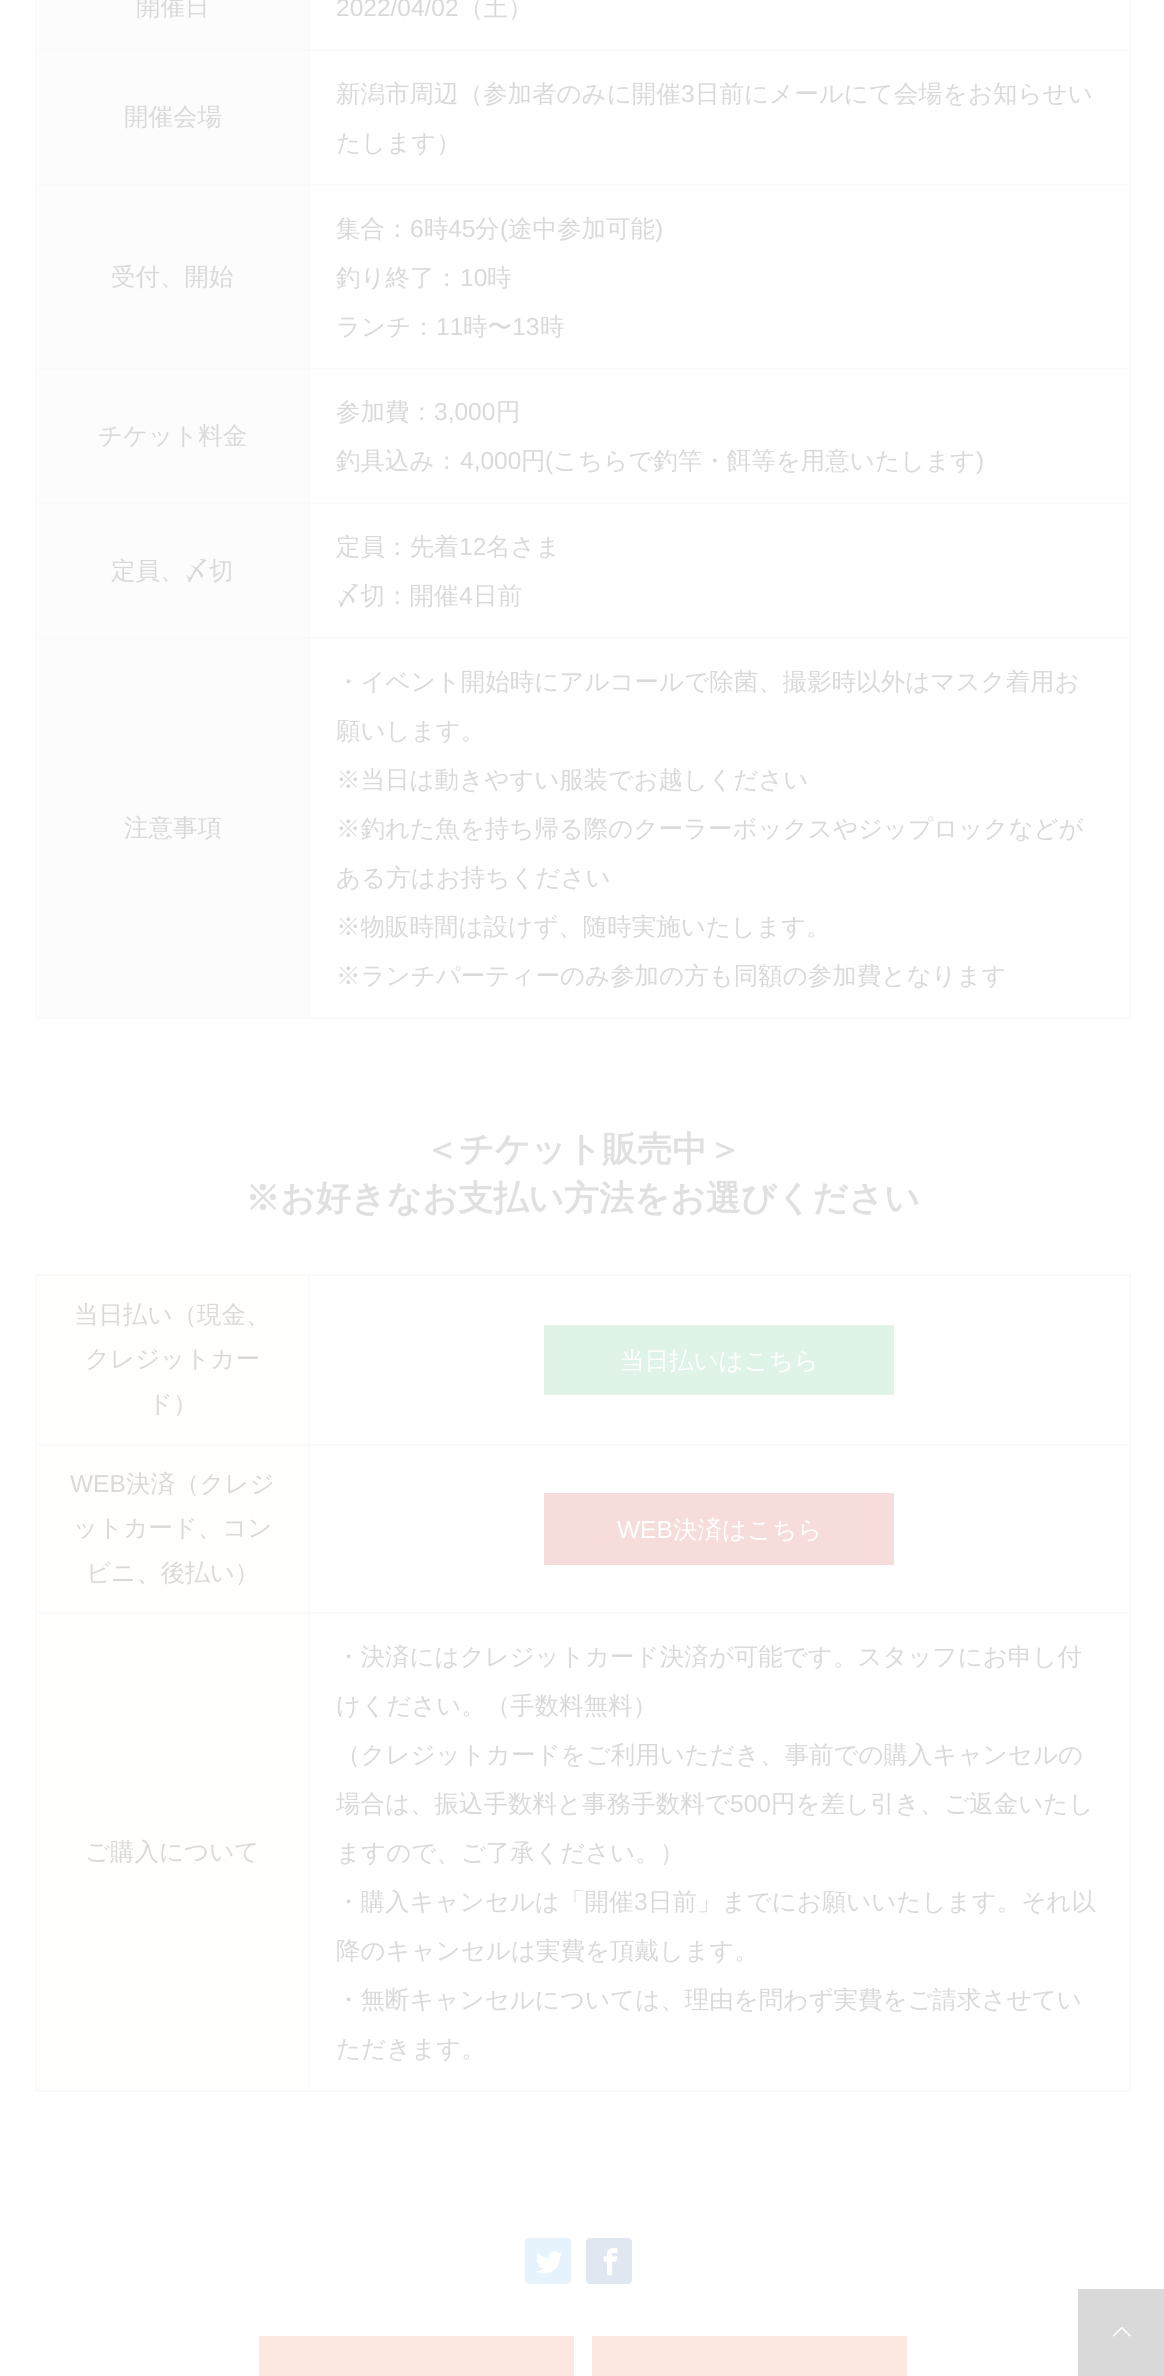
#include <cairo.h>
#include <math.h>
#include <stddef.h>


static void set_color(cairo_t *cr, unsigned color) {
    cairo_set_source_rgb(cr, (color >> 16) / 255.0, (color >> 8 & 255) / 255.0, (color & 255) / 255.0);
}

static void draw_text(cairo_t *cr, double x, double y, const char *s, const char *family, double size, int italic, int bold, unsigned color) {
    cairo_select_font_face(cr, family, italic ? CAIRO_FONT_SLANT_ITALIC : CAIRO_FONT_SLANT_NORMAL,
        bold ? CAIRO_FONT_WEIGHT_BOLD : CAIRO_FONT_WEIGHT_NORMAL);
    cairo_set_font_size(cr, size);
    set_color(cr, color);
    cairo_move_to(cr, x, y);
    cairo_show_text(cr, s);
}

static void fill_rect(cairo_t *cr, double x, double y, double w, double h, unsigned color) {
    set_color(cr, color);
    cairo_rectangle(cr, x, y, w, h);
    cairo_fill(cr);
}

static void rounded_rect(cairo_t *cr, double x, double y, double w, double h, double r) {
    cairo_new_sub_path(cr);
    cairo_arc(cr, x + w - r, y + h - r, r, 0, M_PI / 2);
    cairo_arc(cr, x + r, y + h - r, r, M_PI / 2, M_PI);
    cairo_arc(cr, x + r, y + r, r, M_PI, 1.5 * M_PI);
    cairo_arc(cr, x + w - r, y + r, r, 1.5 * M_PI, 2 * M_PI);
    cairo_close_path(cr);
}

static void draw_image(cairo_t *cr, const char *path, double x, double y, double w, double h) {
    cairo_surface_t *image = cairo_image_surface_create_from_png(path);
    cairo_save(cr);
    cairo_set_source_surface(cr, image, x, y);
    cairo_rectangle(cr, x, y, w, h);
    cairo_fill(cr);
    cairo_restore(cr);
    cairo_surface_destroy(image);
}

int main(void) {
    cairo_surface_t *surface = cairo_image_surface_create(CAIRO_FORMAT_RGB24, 1164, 2376);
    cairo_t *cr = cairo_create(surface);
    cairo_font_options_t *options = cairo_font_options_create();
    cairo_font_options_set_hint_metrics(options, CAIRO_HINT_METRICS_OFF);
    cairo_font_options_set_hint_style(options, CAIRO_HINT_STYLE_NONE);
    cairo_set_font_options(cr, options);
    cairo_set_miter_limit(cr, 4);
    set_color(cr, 0xFFFFFF);
    cairo_paint(cr);
    fill_rect(cr, 37, 0, 271, 49, 0xFCFCFC);
    draw_text(cr, 136, 15, "開催日", "WenQuanYi Zen Hei Medium", 24.5, 0, 0, 0xD9D9D9);
    fill_rect(cr, 308, 49, 823, 2, 0xFAFAFA);
    fill_rect(cr, 308, 184, 823, 2, 0xFAFAFA);
    fill_rect(cr, 308, 368, 823, 2, 0xFAFAFA);
    fill_rect(cr, 308, 502, 823, 2, 0xFAFAFA);
    fill_rect(cr, 308, 637, 823, 2, 0xFAFAFA);
    fill_rect(cr, 1129, 637, 2, 382, 0xFAFAFA);
    fill_rect(cr, 308, 1017, 823, 2, 0xFAFAFA);
    fill_rect(cr, 308, 637, 2, 382, 0xFAFAFA);
    fill_rect(cr, 35, 637, 275, 2, 0xFAFAFA);
    fill_rect(cr, 308, 502, 2, 137, 0xFAFAFA);
    fill_rect(cr, 35, 502, 275, 2, 0xFAFAFA);
    fill_rect(cr, 308, 368, 2, 136, 0xFAFAFA);
    fill_rect(cr, 35, 368, 275, 2, 0xFAFAFA);
    fill_rect(cr, 308, 184, 2, 185, 0xFAFAFA);
    fill_rect(cr, 35, 184, 275, 2, 0xFAFAFA);
    fill_rect(cr, 308, 49, 2, 137, 0xFAFAFA);
    fill_rect(cr, 35, 49, 275, 2, 0xFAFAFA);
    fill_rect(cr, 308, 0, 2, 51, 0xFAFAFA);
    draw_text(cr, 336, 16, "2022/04/02", "Liberation Sans", 24.5, 0, 0, 0xD9D9D9);
    draw_text(cr, 459, 16, "（土）", "WenQuanYi Zen Hei Medium", 24.5, 0, 0, 0xD9D9D9);
    fill_rect(cr, 37, 51, 271, 133, 0xFCFCFC);
    fill_rect(cr, 35, 1017, 275, 2, 0xFAFAFA);
    fill_rect(cr, 35, 637, 2, 382, 0xFAFAFA);
    fill_rect(cr, 35, 502, 2, 137, 0xFAFAFA);
    fill_rect(cr, 35, 368, 2, 136, 0xFAFAFA);
    fill_rect(cr, 35, 184, 2, 185, 0xFAFAFA);
    fill_rect(cr, 35, 0, 2, 186, 0xFAFAFA);
    draw_text(cr, 124, 125, "開催会場", "WenQuanYi Zen Hei Medium", 24.5, 0, 0, 0xD9D9D9);
    fill_rect(cr, 1129, 502, 2, 137, 0xFAFAFA);
    fill_rect(cr, 1129, 368, 2, 136, 0xFAFAFA);
    fill_rect(cr, 1129, 184, 2, 185, 0xFAFAFA);
    fill_rect(cr, 1129, 0, 2, 186, 0xFAFAFA);
    draw_text(cr, 336, 102, "新潟市周辺（参加者のみに開催", "WenQuanYi Zen Hei Medium", 24.5, 0, 0, 0xD9D9D9);
    draw_text(cr, 681, 102, "3", "Liberation Sans", 24.5, 0, 0, 0xD9D9D9);
    draw_text(cr, 695, 102, "日前にメールにて会場をお知らせい", "WenQuanYi Zen Hei Medium", 24.5, 0, 0, 0xD9D9D9);
    draw_text(cr, 336, 151, "たします）", "WenQuanYi Zen Hei Medium", 24.5, 0, 0, 0xD9D9D9);
    fill_rect(cr, 37, 186, 271, 182, 0xFCFCFC);
    draw_text(cr, 111, 285, "受付、開始", "WenQuanYi Zen Hei Medium", 24.5, 0, 0, 0xD9D9D9);
    draw_text(cr, 336, 237, "集合：", "WenQuanYi Zen Hei Medium", 24.5, 0, 0, 0xD9D9D9);
    draw_text(cr, 410, 237, "6", "Liberation Sans", 24.5, 0, 0, 0xD9D9D9);
    draw_text(cr, 424, 237, "時", "WenQuanYi Zen Hei Medium", 24.5, 0, 0, 0xD9D9D9);
    draw_text(cr, 448, 237, "45", "Liberation Sans", 24.5, 0, 0, 0xD9D9D9);
    draw_text(cr, 475, 237, "分", "WenQuanYi Zen Hei Medium", 24.5, 0, 0, 0xD9D9D9);
    draw_text(cr, 500, 237, "(", "Liberation Sans", 24.5, 0, 0, 0xD9D9D9);
    draw_text(cr, 508, 237, "途中参加可能", "WenQuanYi Zen Hei Medium", 24.5, 0, 0, 0xD9D9D9);
    draw_text(cr, 655, 237, ")", "Liberation Sans", 24.5, 0, 0, 0xD9D9D9);
    draw_text(cr, 336, 286, "釣り終了：", "WenQuanYi Zen Hei Medium", 24.5, 0, 0, 0xD9D9D9);
    draw_text(cr, 460, 286, "10", "Liberation Sans", 24.5, 0, 0, 0xD9D9D9);
    draw_text(cr, 487, 286, "時", "WenQuanYi Zen Hei Medium", 24.5, 0, 0, 0xD9D9D9);
    draw_text(cr, 336, 335, "ランチ：", "WenQuanYi Zen Hei Medium", 24.5, 0, 0, 0xD9D9D9);
    draw_text(cr, 436, 335, "11", "Liberation Sans", 24.5, 0, 0, 0xD9D9D9);
    draw_text(cr, 463, 335, "時〜", "WenQuanYi Zen Hei Medium", 24.5, 0, 0, 0xD9D9D9);
    draw_text(cr, 512, 335, "13", "Liberation Sans", 24.5, 0, 0, 0xD9D9D9);
    draw_text(cr, 540, 335, "時", "WenQuanYi Zen Hei Medium", 24.5, 0, 0, 0xD9D9D9);
    fill_rect(cr, 37, 370, 271, 132, 0xFCFCFC);
    draw_text(cr, 98, 444, "チケット料金", "WenQuanYi Zen Hei Medium", 24.5, 0, 0, 0xD9D9D9);
    draw_text(cr, 336, 420, "参加費：", "WenQuanYi Zen Hei Medium", 24.5, 0, 0, 0xD9D9D9);
    draw_text(cr, 434, 420, "3,000", "Liberation Sans", 24.5, 0, 0, 0xD9D9D9);
    draw_text(cr, 496, 420, "円", "WenQuanYi Zen Hei Medium", 24.5, 0, 0, 0xD9D9D9);
    draw_text(cr, 336, 469, "釣具込み：", "WenQuanYi Zen Hei Medium", 24.5, 0, 0, 0xD9D9D9);
    draw_text(cr, 460, 469, "4,000", "Liberation Sans", 24.5, 0, 0, 0xD9D9D9);
    draw_text(cr, 521, 469, "円", "WenQuanYi Zen Hei Medium", 24.5, 0, 0, 0xD9D9D9);
    draw_text(cr, 545, 469, "(", "Liberation Sans", 24.5, 0, 0, 0xD9D9D9);
    draw_text(cr, 553, 469, "こちらで釣竿・餌等を用意いたします", "WenQuanYi Zen Hei Medium", 24.5, 0, 0, 0xD9D9D9);
    draw_text(cr, 976, 469, ")", "Liberation Sans", 24.5, 0, 0, 0xD9D9D9);
    fill_rect(cr, 37, 504, 271, 133, 0xFCFCFC);
    draw_text(cr, 111, 579, "定員、〆切", "WenQuanYi Zen Hei Medium", 24.5, 0, 0, 0xD9D9D9);
    draw_text(cr, 336, 555, "定員：先着", "WenQuanYi Zen Hei Medium", 24.5, 0, 0, 0xD9D9D9);
    draw_text(cr, 459, 555, "12", "Liberation Sans", 24.5, 0, 0, 0xD9D9D9);
    draw_text(cr, 486, 555, "名さま", "WenQuanYi Zen Hei Medium", 24.5, 0, 0, 0xD9D9D9);
    draw_text(cr, 336, 604, "〆切：開催", "WenQuanYi Zen Hei Medium", 24.5, 0, 0, 0xD9D9D9);
    draw_text(cr, 459, 604, "4", "Liberation Sans", 24.5, 0, 0, 0xD9D9D9);
    draw_text(cr, 473, 604, "日前", "WenQuanYi Zen Hei Medium", 24.5, 0, 0, 0xD9D9D9);
    fill_rect(cr, 37, 639, 271, 378, 0xFCFCFC);
    draw_text(cr, 124, 836, "注意事項", "WenQuanYi Zen Hei Medium", 24.5, 0, 0, 0xD9D9D9);
    draw_text(cr, 336, 690, "・イベント開始時にアルコールで除菌、撮影時以外はマスク着用お", "WenQuanYi Zen Hei Medium", 24.5, 0, 0, 0xD9D9D9);
    draw_text(cr, 336, 739, "願いします。", "WenQuanYi Zen Hei Medium", 24.5, 0, 0, 0xD9D9D9);
    draw_text(cr, 336, 788, "※当日は動きやすい服装でお越しください", "WenQuanYi Zen Hei Medium", 24.5, 0, 0, 0xD9D9D9);
    draw_text(cr, 336, 837, "※釣れた魚を持ち帰る際のクーラーボックスやジップロックなどが", "WenQuanYi Zen Hei Medium", 24.5, 0, 0, 0xD9D9D9);
    draw_text(cr, 336, 886, "ある方はお持ちください", "WenQuanYi Zen Hei Medium", 24.5, 0, 0, 0xD9D9D9);
    draw_text(cr, 336, 935, "※物販時間は設けず、随時実施いたします。", "WenQuanYi Zen Hei Medium", 24.5, 0, 0, 0xD9D9D9);
    draw_text(cr, 336, 984, "※ランチパーティーのみ参加の方も同額の参加費となります", "WenQuanYi Zen Hei Medium", 24.5, 0, 0, 0xD9D9D9);
    draw_text(cr, 424, 1161, "＜チケット販売中＞", "WenQuanYi Zen Hei", 35, 0, 1, 0xE0E0E0);
    draw_text(cr, 245, 1210, "※お好きなお支払い方法をお選びください", "WenQuanYi Zen Hei", 35, 0, 1, 0xE0E0E0);
    fill_rect(cr, 37, 1276, 271, 168, 0xFFFEFC);
    fill_rect(cr, 308, 1274, 823, 2, 0xFAFAFA);
    fill_rect(cr, 308, 1444, 823, 2, 0xFAFAFA);
    fill_rect(cr, 308, 1612, 823, 2, 0xFAFAFA);
    fill_rect(cr, 1129, 1612, 2, 479, 0xFAFAFA);
    fill_rect(cr, 308, 2090, 823, 2, 0xFAFAFA);
    fill_rect(cr, 308, 1612, 2, 479, 0xFAFAFA);
    fill_rect(cr, 35, 1612, 275, 2, 0xFAFAFA);
    fill_rect(cr, 308, 1444, 2, 170, 0xFAFAFA);
    fill_rect(cr, 35, 1444, 275, 2, 0xFAFAFA);
    fill_rect(cr, 308, 1274, 2, 172, 0xFAFAFA);
    fill_rect(cr, 35, 1274, 275, 2, 0xFAFAFA);
    fill_rect(cr, 35, 2090, 275, 2, 0xFAFAFA);
    fill_rect(cr, 35, 1612, 2, 479, 0xFAFAFA);
    fill_rect(cr, 35, 1444, 2, 170, 0xFAFAFA);
    fill_rect(cr, 35, 1274, 2, 172, 0xFAFAFA);
    draw_text(cr, 74, 1323, "当日払い（現金、", "WenQuanYi Zen Hei Medium", 24.5, 0, 0, 0xD9D9D9);
    draw_text(cr, 85, 1367, "クレジットカー", "WenQuanYi Zen Hei Medium", 24.5, 0, 0, 0xD9D9D9);
    draw_text(cr, 148, 1412, "ド）", "WenQuanYi Zen Hei Medium", 24.5, 0, 0, 0xD9D9D9);
    fill_rect(cr, 1129, 1444, 2, 170, 0xFAFAFA);
    fill_rect(cr, 1129, 1274, 2, 172, 0xFAFAFA);
    fill_rect(cr, 544, 1325, 350, 70, 0xDFF3E7);
    draw_text(cr, 620, 1369, "当日払いはこちら", "WenQuanYi Zen Hei Medium", 24.5, 0, 0, 0xFFFFFF);
    fill_rect(cr, 37, 1446, 271, 166, 0xFFFEFC);
    draw_text(cr, 70, 1492, "WEB", "Liberation Sans", 24.5, 0, 0, 0xD9D9D9);
    draw_text(cr, 126, 1492, "決済（クレジ", "WenQuanYi Zen Hei Medium", 24.5, 0, 0, 0xD9D9D9);
    draw_text(cr, 73, 1536, "ットカード、コン", "WenQuanYi Zen Hei Medium", 24.5, 0, 0, 0xD9D9D9);
    draw_text(cr, 86, 1581, "ビニ、後払い）", "WenQuanYi Zen Hei Medium", 24.5, 0, 0, 0xD9D9D9);
    fill_rect(cr, 544, 1493, 350, 72, 0xF6DDDB);
    draw_text(cr, 617, 1538, "WEB", "Liberation Sans", 24.5, 0, 0, 0xFFFFFF);
    draw_text(cr, 673, 1538, "決済はこちら", "WenQuanYi Zen Hei Medium", 24.5, 0, 0, 0xFFFFFF);
    fill_rect(cr, 37, 1614, 271, 476, 0xFFFEFC);
    draw_text(cr, 85, 1860, "ご購入について", "WenQuanYi Zen Hei Medium", 24.5, 0, 0, 0xD9D9D9);
    draw_text(cr, 336, 1665, "・決済にはクレジットカード決済が可能です。スタッフにお申し付", "WenQuanYi Zen Hei Medium", 24.5, 0, 0, 0xD9D9D9);
    draw_text(cr, 336, 1714, "けください。（手数料無料）", "WenQuanYi Zen Hei Medium", 24.5, 0, 0, 0xD9D9D9);
    draw_text(cr, 336, 1763, "（クレジットカードをご利用いただき、事前での購入キャンセルの", "WenQuanYi Zen Hei Medium", 24.5, 0, 0, 0xD9D9D9);
    draw_text(cr, 336, 1812, "場合は、振込手数料と事務手数料で", "WenQuanYi Zen Hei Medium", 24.5, 0, 0, 0xD9D9D9);
    draw_text(cr, 730, 1812, "500", "Liberation Sans", 24.5, 0, 0, 0xD9D9D9);
    draw_text(cr, 771, 1812, "円を差し引き、ご返金いたし", "WenQuanYi Zen Hei Medium", 24.5, 0, 0, 0xD9D9D9);
    draw_text(cr, 336, 1861, "ますので、ご了承ください。）", "WenQuanYi Zen Hei Medium", 24.5, 0, 0, 0xD9D9D9);
    draw_text(cr, 336, 1910, "・購入キャンセルは「開催", "WenQuanYi Zen Hei Medium", 24.5, 0, 0, 0xD9D9D9);
    draw_text(cr, 634, 1910, "3", "Liberation Sans", 24.5, 0, 0, 0xD9D9D9);
    draw_text(cr, 648, 1910, "日前」までにお願いいたします。それ以", "WenQuanYi Zen Hei Medium", 24.5, 0, 0, 0xD9D9D9);
    draw_text(cr, 336, 1959, "降のキャンセルは実費を頂戴します。", "WenQuanYi Zen Hei Medium", 24.5, 0, 0, 0xD9D9D9);
    draw_text(cr, 336, 2008, "・無断キャンセルについては、理由を問わず実費をご請求させてい", "WenQuanYi Zen Hei Medium", 24.5, 0, 0, 0xD9D9D9);
    draw_text(cr, 336, 2057, "ただきます。", "WenQuanYi Zen Hei Medium", 24.5, 0, 0, 0xD9D9D9);
    set_color(cr, 0xE6F3FC);
    rounded_rect(cr, 525, 2238, 46, 46, 4);
    cairo_fill(cr);
    draw_image(cr, "assets/img1.png", 535, 2251, 28, 23);
    set_color(cr, 0xE1E7F0);
    rounded_rect(cr, 586, 2238, 46, 46, 4);
    cairo_fill(cr);
    draw_image(cr, "assets/img2.png", 603, 2247, 15, 29);
    fill_rect(cr, 259, 2336, 315, 40, 0xFCE7E1);
    fill_rect(cr, 592, 2336, 315, 40, 0xFCE7E1);
    fill_rect(cr, 1078, 2289, 86, 87, 0xD9D9D9);
    draw_image(cr, "assets/img3.png", 1112, 2326, 19, 11);
    cairo_surface_write_to_png(surface, "output.png");
    cairo_font_options_destroy(options);
    cairo_destroy(cr);
    cairo_surface_destroy(surface);
    return 0;
}
